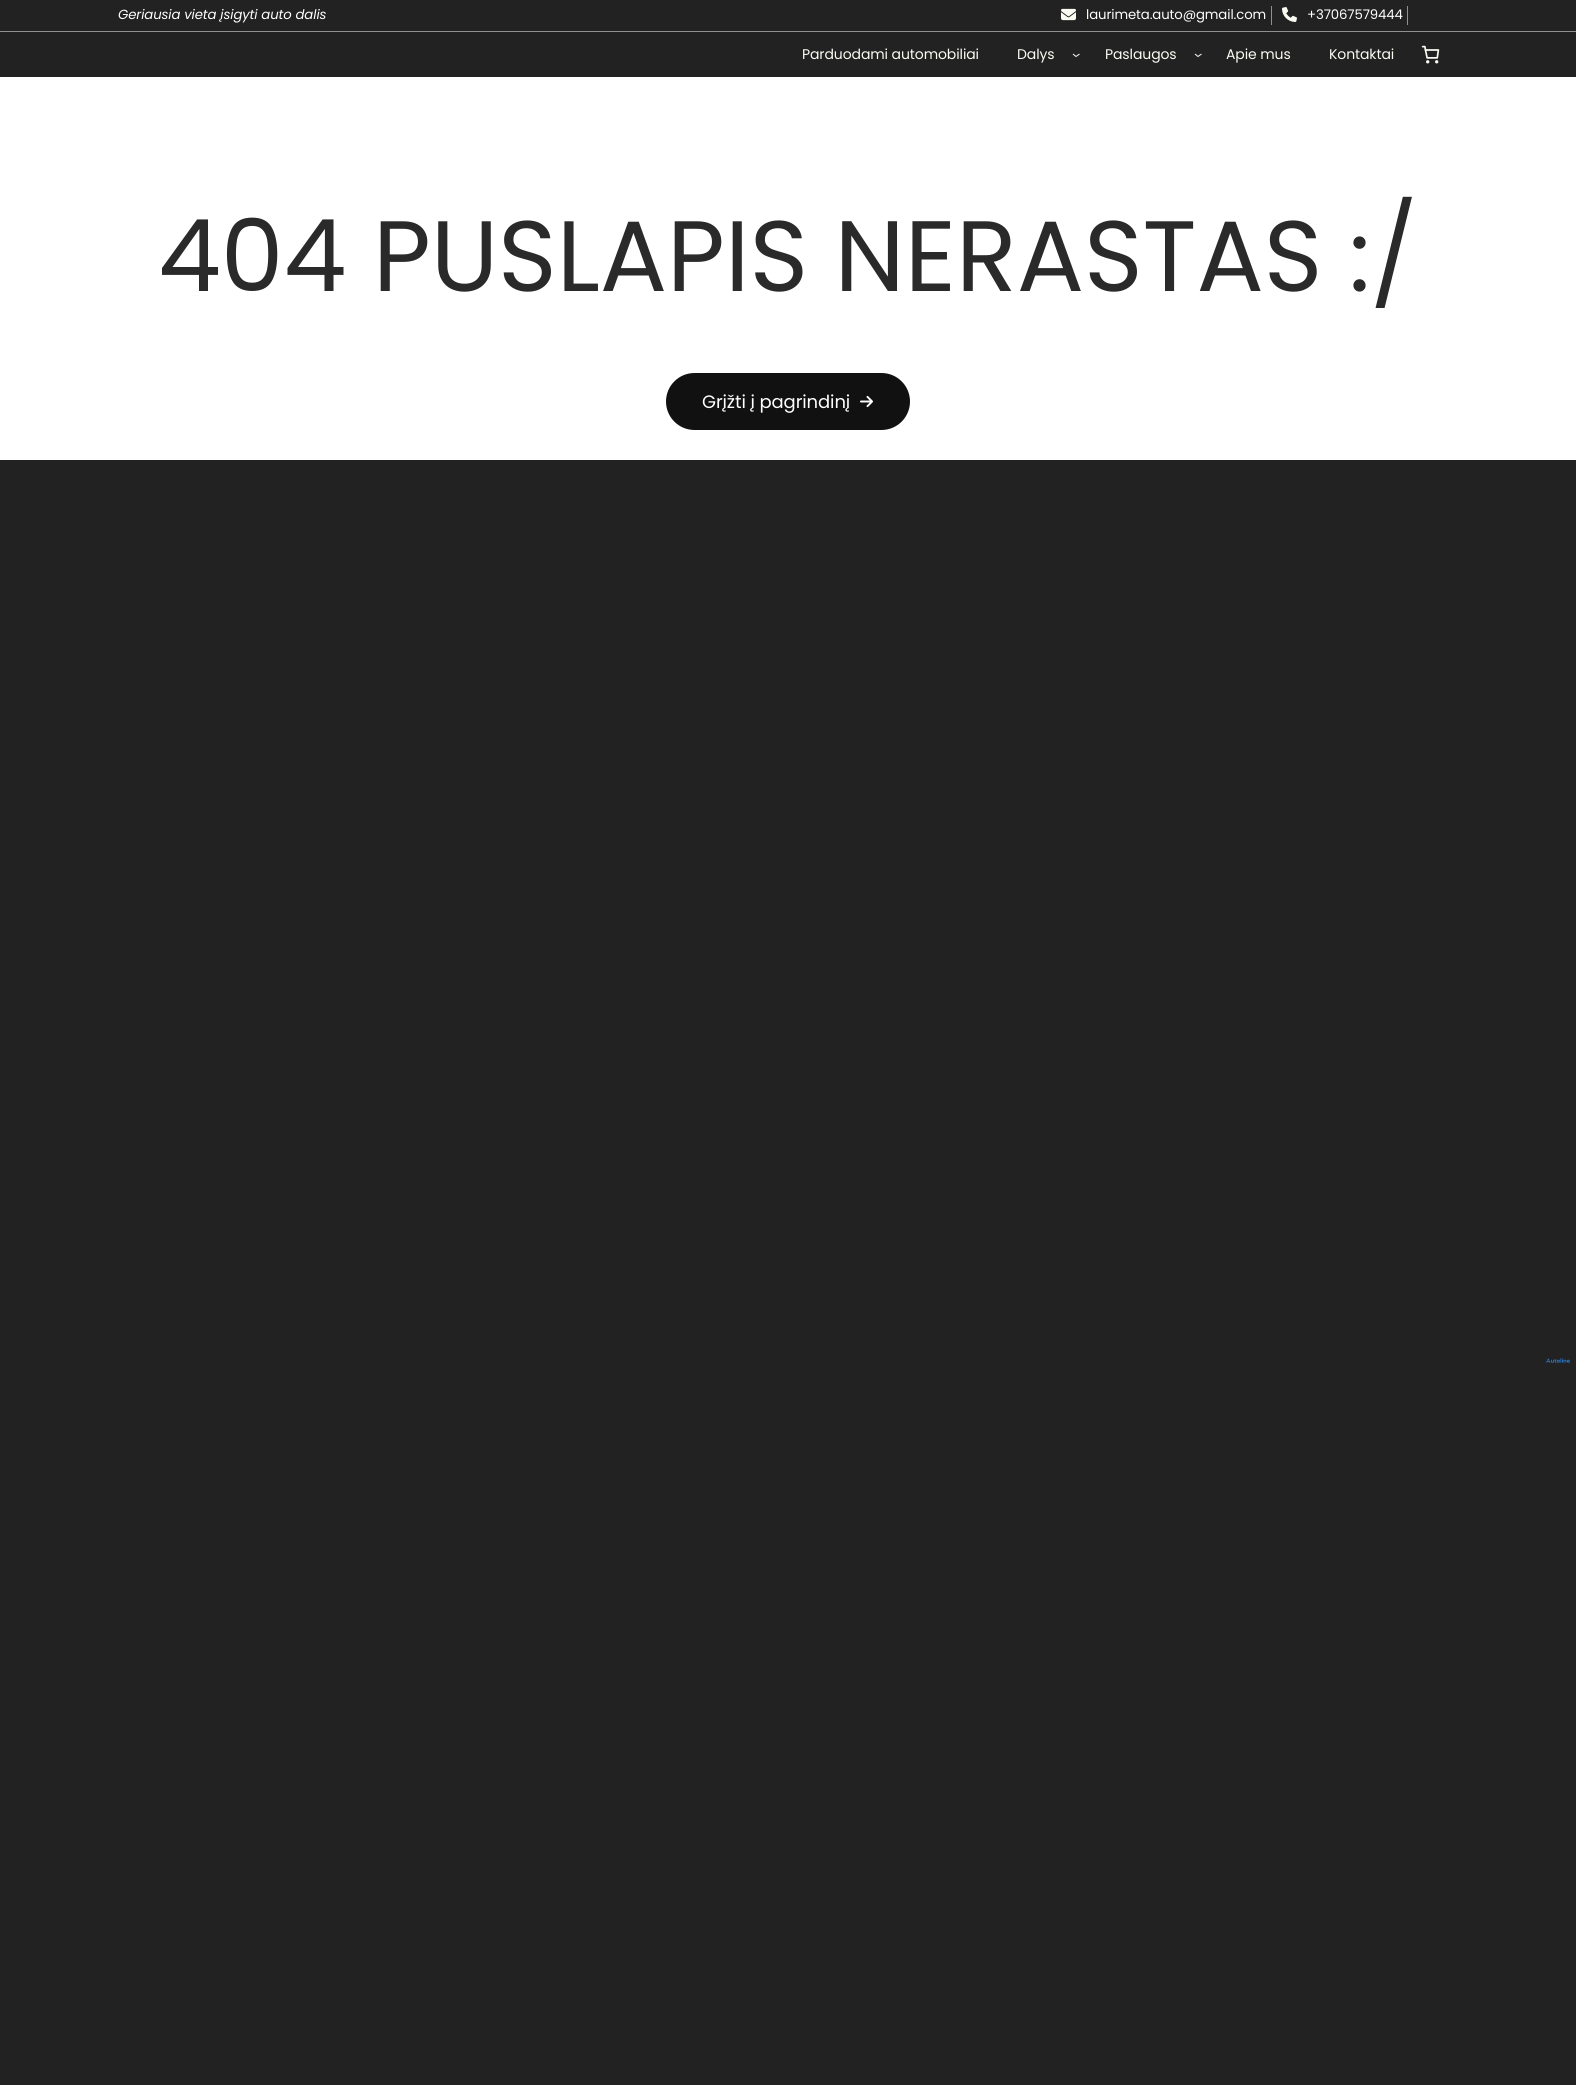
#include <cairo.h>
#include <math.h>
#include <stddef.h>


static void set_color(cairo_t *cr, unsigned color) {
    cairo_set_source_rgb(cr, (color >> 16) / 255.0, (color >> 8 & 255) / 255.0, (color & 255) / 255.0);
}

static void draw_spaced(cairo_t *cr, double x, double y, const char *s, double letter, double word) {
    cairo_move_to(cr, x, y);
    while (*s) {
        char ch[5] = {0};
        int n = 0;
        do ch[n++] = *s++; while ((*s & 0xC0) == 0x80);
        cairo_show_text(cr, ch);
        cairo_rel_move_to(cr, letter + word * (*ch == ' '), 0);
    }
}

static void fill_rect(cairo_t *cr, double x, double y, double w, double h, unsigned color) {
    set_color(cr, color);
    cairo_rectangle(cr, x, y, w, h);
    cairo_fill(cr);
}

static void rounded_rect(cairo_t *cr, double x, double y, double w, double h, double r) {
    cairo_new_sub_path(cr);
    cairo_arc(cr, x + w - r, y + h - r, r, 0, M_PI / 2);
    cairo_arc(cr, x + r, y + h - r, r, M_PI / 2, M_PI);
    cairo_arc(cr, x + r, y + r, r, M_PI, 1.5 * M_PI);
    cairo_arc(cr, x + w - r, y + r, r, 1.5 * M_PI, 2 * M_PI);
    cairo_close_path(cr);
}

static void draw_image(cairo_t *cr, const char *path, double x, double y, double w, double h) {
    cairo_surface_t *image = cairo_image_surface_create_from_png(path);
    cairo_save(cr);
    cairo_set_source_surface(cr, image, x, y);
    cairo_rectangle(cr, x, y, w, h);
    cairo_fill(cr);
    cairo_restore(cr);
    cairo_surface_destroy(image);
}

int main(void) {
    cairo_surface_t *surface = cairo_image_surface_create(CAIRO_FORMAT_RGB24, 1576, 2085);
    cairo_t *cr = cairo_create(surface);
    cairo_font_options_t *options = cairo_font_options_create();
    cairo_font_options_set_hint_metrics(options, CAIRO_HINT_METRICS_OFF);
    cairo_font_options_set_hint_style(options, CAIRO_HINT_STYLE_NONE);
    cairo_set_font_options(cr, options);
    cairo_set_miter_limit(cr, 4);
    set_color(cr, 0xFFFFFF);
    cairo_paint(cr);
    fill_rect(cr, 0, 0, 1576, 31, 0x222222);
    fill_rect(cr, 0, 31, 1576, 1, 0x909090);
    cairo_select_font_face(cr, "Poppins", CAIRO_FONT_SLANT_ITALIC, CAIRO_FONT_WEIGHT_NORMAL);
    cairo_set_font_size(cr, 13.25);
    set_color(cr, 0xFFFFFF);
    draw_spaced(cr, 118, 19, "Geriausia vieta įsigyti auto dalis", -0.1, 0);
    draw_image(cr, "assets/img1.png", 1061, 8, 15, 13);
    fill_rect(cr, 1271, 6, 1, 19, 0x909090);
    cairo_select_font_face(cr, "Poppins", CAIRO_FONT_SLANT_NORMAL, CAIRO_FONT_WEIGHT_NORMAL);
    set_color(cr, 0xFFFFFF);
    draw_spaced(cr, 1086, 19, "laurimeta.auto@gmail.com", -0.1, 0);
    draw_image(cr, "assets/img2.png", 1282, 7, 15, 15);
    fill_rect(cr, 1407, 6, 1, 19, 0x909090);
    set_color(cr, 0xFFFFFF);
    draw_spaced(cr, 1307, 19, "+37067579444", -0.1, 0);
    fill_rect(cr, 0, 32, 1576, 45, 0x222222);
    cairo_set_font_size(cr, 14);
    set_color(cr, 0xFBFAF3);
    draw_spaced(cr, 802, 59, "Parduodami automobiliai", -0.1, 0);
    draw_spaced(cr, 1017, 59, "Dalys", -0.1, 0);
    cairo_new_path(cr);
    cairo_move_to(cr, 1073, 54);
    cairo_line_to(cr, 1076, 56.5);
    cairo_line_to(cr, 1079.5, 54);
    cairo_set_line_width(cr, 1);
    cairo_stroke(cr);
    draw_spaced(cr, 1105, 59, "Paslaugos", -0.1, 0);
    cairo_new_path(cr);
    cairo_move_to(cr, 1195, 54);
    cairo_line_to(cr, 1198, 56.5);
    cairo_line_to(cr, 1201.5, 54);
    cairo_stroke(cr);
    draw_spaced(cr, 1226, 59, "Apie mus", -0.1, 0);
    draw_spaced(cr, 1329, 59, "Kontaktai", -0.1, 0);
    draw_image(cr, "assets/img3.png", 1421, 45, 19, 19);
    cairo_set_font_size(cr, 100);
    set_color(cr, 0x2A2A2A);
    draw_spaced(cr, 158, 291, "404 PUSLAPIS NERASTAS :/", -0.1, 0);
    set_color(cr, 0x111111);
    rounded_rect(cr, 666, 373, 244, 57, 28.5);
    cairo_fill(cr);
    cairo_set_font_size(cr, 18);
    set_color(cr, 0xFFFFFF);
    draw_spaced(cr, 702, 408, "Grįžti į pagrindinį", -0.1, 0);
    draw_image(cr, "assets/img4.png", 860, 395, 13, 13);
    fill_rect(cr, 0, 460, 1576, 1625, 0x222222);
    draw_image(cr, "assets/img5.png", 1546, 1358, 24, 5);
    cairo_surface_write_to_png(surface, "output.png");
    cairo_font_options_destroy(options);
    cairo_destroy(cr);
    cairo_surface_destroy(surface);
    return 0;
}
